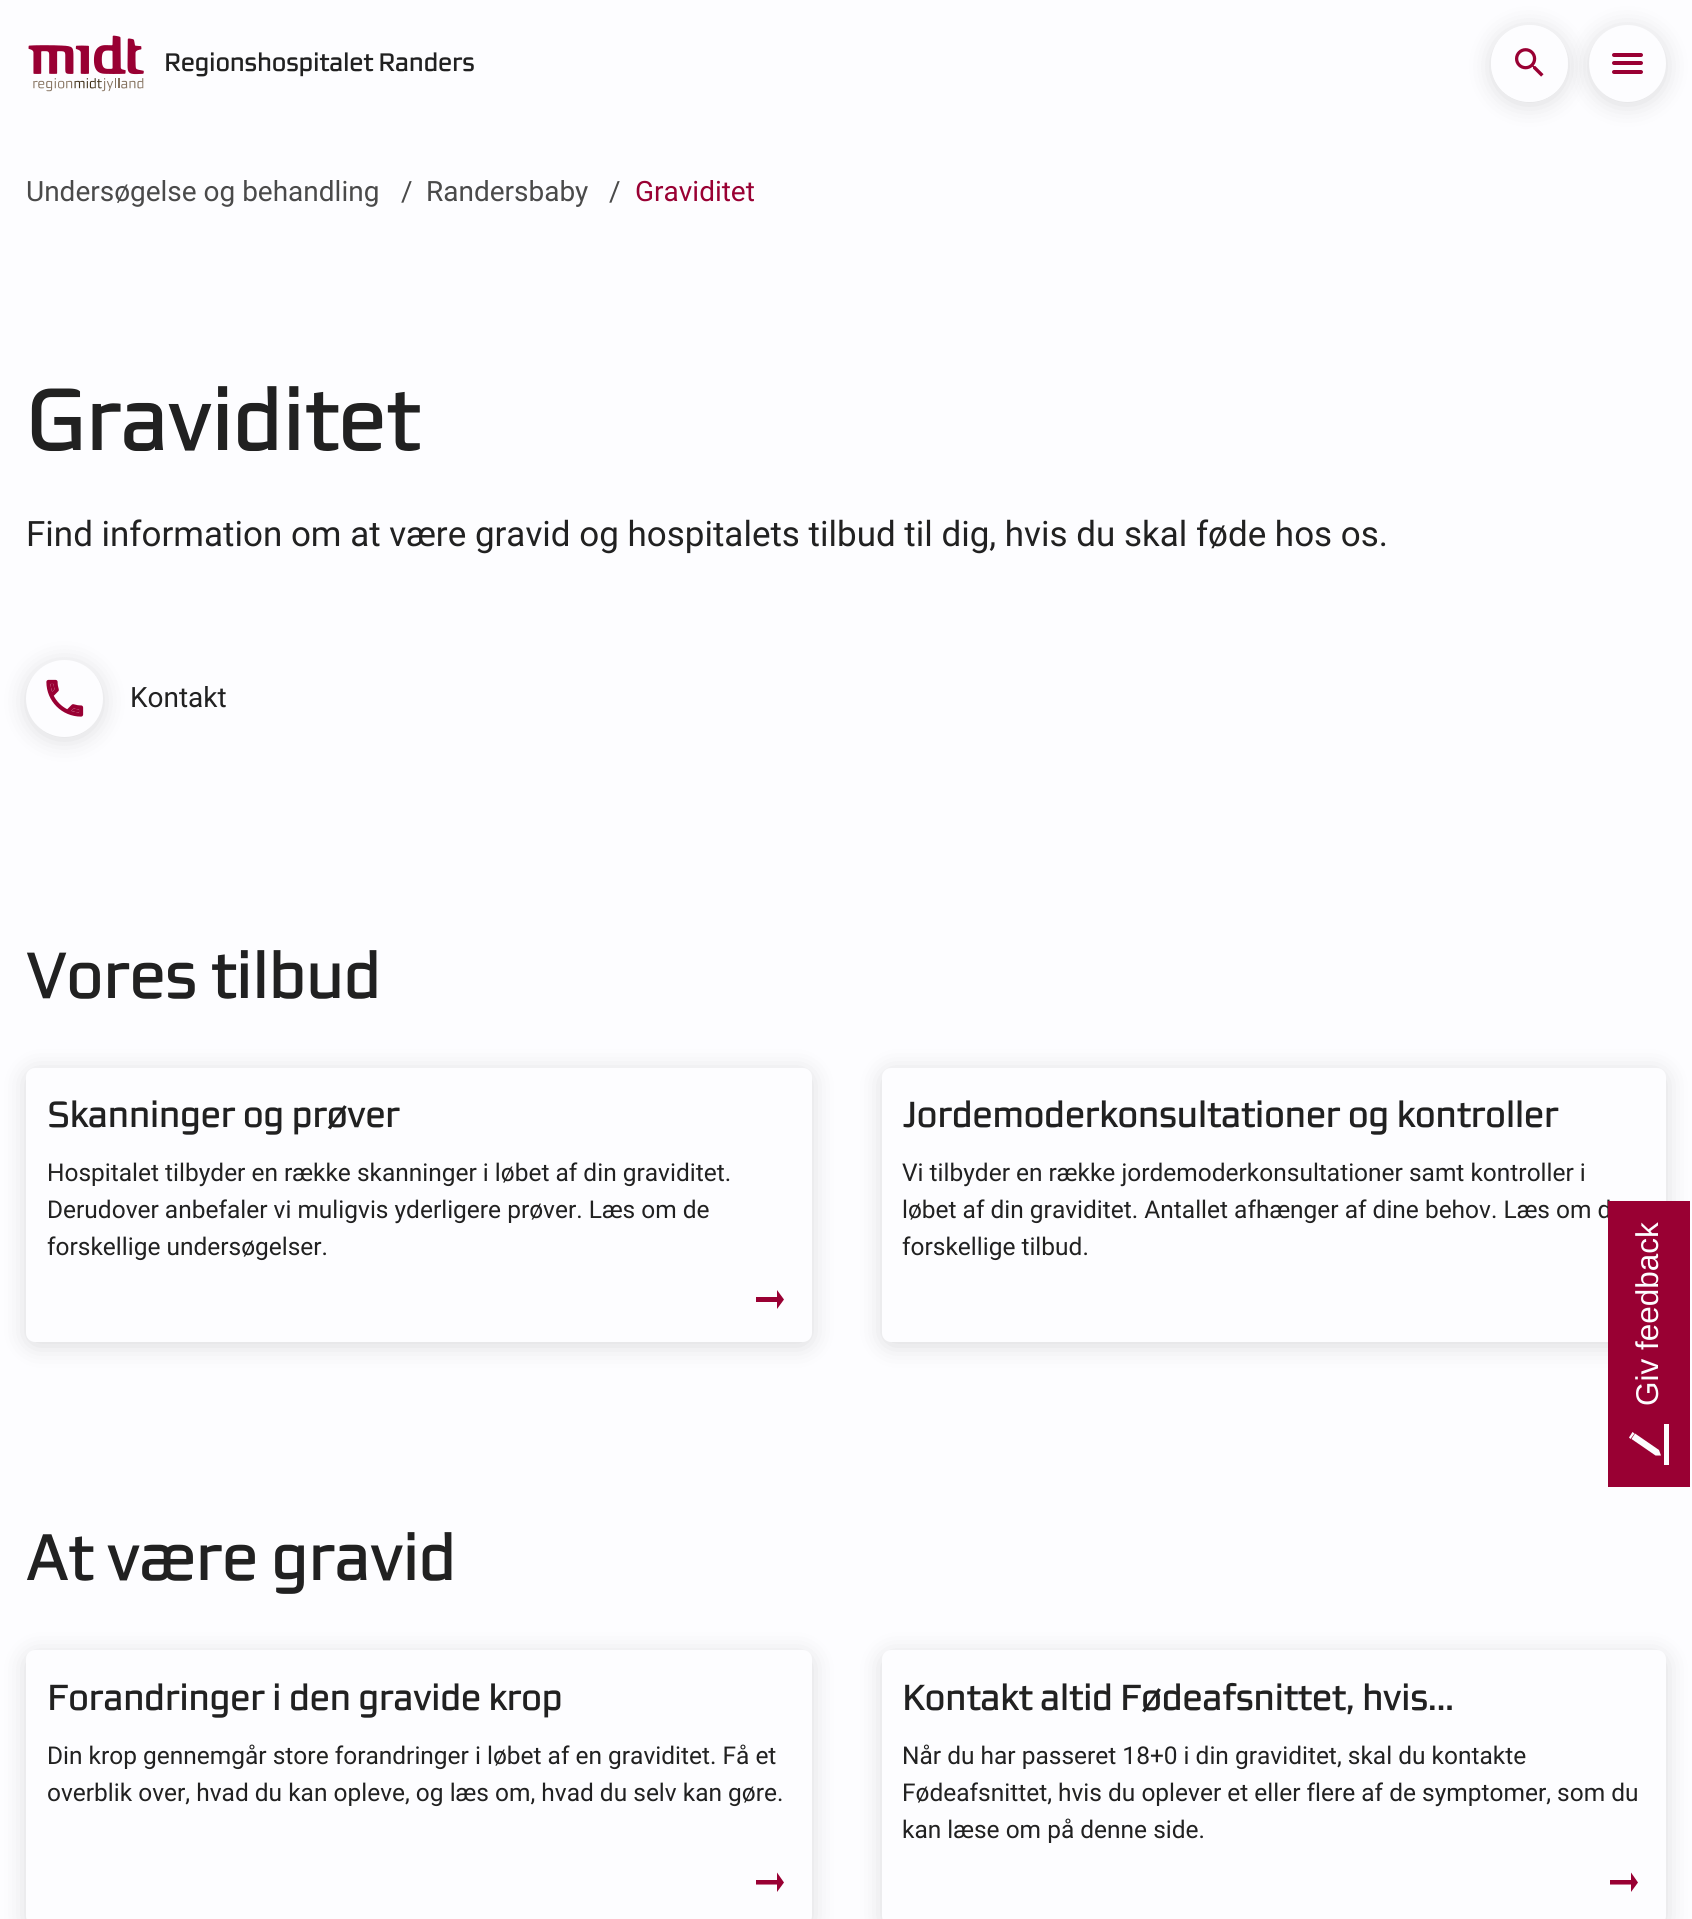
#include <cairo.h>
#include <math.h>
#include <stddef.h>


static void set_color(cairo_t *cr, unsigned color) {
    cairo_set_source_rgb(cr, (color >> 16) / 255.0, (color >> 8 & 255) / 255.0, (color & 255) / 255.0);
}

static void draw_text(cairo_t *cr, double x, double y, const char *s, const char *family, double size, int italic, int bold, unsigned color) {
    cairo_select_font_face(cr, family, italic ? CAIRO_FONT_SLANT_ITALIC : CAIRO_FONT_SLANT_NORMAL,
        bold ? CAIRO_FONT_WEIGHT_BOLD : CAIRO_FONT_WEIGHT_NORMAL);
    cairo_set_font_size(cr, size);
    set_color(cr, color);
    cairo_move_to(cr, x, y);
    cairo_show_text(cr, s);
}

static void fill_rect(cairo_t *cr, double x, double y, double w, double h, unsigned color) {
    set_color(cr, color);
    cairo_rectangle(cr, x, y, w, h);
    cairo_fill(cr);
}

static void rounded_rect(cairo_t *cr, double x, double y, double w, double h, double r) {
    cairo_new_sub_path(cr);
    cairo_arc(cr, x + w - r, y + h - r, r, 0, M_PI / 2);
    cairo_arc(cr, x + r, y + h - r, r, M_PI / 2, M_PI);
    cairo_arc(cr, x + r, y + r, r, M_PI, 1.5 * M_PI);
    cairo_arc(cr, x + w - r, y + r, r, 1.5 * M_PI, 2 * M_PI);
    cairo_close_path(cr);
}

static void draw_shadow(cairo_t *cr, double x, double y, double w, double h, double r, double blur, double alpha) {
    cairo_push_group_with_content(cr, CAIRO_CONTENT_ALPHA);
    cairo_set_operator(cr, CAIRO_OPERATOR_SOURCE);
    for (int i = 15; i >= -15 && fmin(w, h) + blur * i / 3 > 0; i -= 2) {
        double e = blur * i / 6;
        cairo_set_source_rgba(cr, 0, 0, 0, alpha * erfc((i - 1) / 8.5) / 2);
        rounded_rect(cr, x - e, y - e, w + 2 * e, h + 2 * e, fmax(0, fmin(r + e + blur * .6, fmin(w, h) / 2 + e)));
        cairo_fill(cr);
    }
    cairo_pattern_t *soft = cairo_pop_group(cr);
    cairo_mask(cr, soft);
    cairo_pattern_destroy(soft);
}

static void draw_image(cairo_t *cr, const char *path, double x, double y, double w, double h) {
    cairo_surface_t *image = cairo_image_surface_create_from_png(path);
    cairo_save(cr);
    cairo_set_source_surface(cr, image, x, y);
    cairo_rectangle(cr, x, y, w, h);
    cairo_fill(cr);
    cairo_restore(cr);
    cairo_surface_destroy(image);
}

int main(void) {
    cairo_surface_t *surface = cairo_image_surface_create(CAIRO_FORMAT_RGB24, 1692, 1919);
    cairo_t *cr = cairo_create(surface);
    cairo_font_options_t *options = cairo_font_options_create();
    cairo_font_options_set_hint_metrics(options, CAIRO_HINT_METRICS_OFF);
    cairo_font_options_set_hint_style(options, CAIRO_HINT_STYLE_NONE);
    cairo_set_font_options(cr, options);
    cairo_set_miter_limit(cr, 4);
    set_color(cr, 0xFDFDFF);
    cairo_paint(cr);
    draw_image(cr, "assets/img1.png", 28, 35, 116, 57);
    draw_text(cr, 164, 71, "Regionshospitalet Randers", "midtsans", 24.5, 0, 1, 0x212121);
    set_color(cr, 0x212121);
    draw_shadow(cr, 1589, 28, 77, 77, 38.5, 12, 0.15);
    set_color(cr, 0xFDFDFF);
    cairo_arc(cr, 1627.5, 63.5, 38.5, 0, 2 * M_PI);
    cairo_fill(cr);
    cairo_save(cr);
    cairo_set_fill_rule(cr, CAIRO_FILL_RULE_EVEN_ODD);
    cairo_new_path(cr);
    cairo_move_to(cr, 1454, 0);
    cairo_line_to(cr, 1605, 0);
    cairo_line_to(cr, 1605, 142);
    cairo_line_to(cr, 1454, 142);
    cairo_close_path(cr);
    cairo_move_to(cr, 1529.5, 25);
    cairo_curve_to(cr, 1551, 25, 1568, 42, 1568, 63.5);
    cairo_curve_to(cr, 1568, 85, 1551, 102, 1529.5, 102);
    cairo_curve_to(cr, 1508, 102, 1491, 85, 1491, 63.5);
    cairo_curve_to(cr, 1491, 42, 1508, 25, 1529.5, 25);
    cairo_close_path(cr);
    cairo_clip(cr);
    set_color(cr, 0x212121);
    draw_shadow(cr, 1491, 28, 77, 77, 38.5, 12, 0.15);
    cairo_restore(cr);
    draw_image(cr, "assets/img2.png", 1515, 48, 29, 29);
    set_color(cr, 0x990033);
    rounded_rect(cr, 1612, 53, 31, 4, 2);
    cairo_fill(cr);
    rounded_rect(cr, 1612, 61, 31, 4, 2);
    cairo_fill(cr);
    rounded_rect(cr, 1612, 70, 31, 4, 2);
    cairo_fill(cr);
    draw_text(cr, 26, 201, "Undersøgelse og behandling", "Roboto", 28, 0, 0, 0x4A4A4A);
    draw_text(cr, 401, 201, "/", "Roboto", 28, 0, 0, 0x4A4A4A);
    draw_text(cr, 426, 201, "Randersbaby", "Roboto", 28, 0, 0, 0x4A4A4A);
    draw_text(cr, 609, 201, "/", "Roboto", 28, 0, 0, 0x4A4A4A);
    draw_text(cr, 635, 201, "Graviditet", "Roboto", 28, 0, 0, 0x990033);
    draw_text(cr, 26, 450, "Graviditet", "midtsans", 84, 0, 1, 0x212121);
    draw_text(cr, 26, 546, "Find information om at være gravid og hospitalets tilbud til dig, hvis du skal føde hos os.", "Roboto", 35, 0, 0, 0x212121);
    set_color(cr, 0x212121);
    draw_shadow(cr, 26, 663, 77, 77, 38.5, 12, 0.15);
    set_color(cr, 0xFDFDFF);
    cairo_arc(cr, 64.5, 698.5, 38.5, 0, 2 * M_PI);
    cairo_fill(cr);
    draw_image(cr, "assets/img3.png", 46, 679, 38, 38);
    draw_text(cr, 130, 707, "Kontakt", "Roboto", 28, 0, 0, 0x212121);
    draw_text(cr, 26, 998, "Vores tilbud", "midtsans", 63, 0, 1, 0x212121);
    set_color(cr, 0x212121);
    draw_shadow(cr, 26, 1071, 786, 275, 9, 12, 0.15);
    set_color(cr, 0xFDFDFF);
    rounded_rect(cr, 26, 1068, 786, 274, 9);
    cairo_fill(cr);
    draw_text(cr, 47, 1127, "Skanninger og prøver", "midtsans", 35, 0, 1, 0x212121);
    draw_text(cr, 47, 1181, "Hospitalet tilbyder en række skanninger i løbet af din graviditet.", "Roboto", 24.5, 0, 0, 0x212121);
    draw_text(cr, 47, 1218, "Derudover anbefaler vi muligvis yderligere prøver. Læs om de", "Roboto", 24.5, 0, 0, 0x212121);
    draw_text(cr, 47, 1255, "forskellige undersøgelser.", "Roboto", 24.5, 0, 0, 0x212121);
    set_color(cr, 0x990033);
    cairo_new_path(cr);
    cairo_move_to(cr, 777, 1297);
    cairo_line_to(cr, 756, 1297);
    cairo_line_to(cr, 756, 1302);
    cairo_line_to(cr, 777, 1302);
    cairo_line_to(cr, 777, 1309);
    cairo_line_to(cr, 784, 1299.5);
    cairo_line_to(cr, 777, 1290);
    cairo_close_path(cr);
    cairo_fill(cr);
    set_color(cr, 0x212121);
    draw_shadow(cr, 882, 1071, 784, 275, 9, 12, 0.15);
    set_color(cr, 0xFDFDFF);
    rounded_rect(cr, 882, 1068, 784, 274, 9);
    cairo_fill(cr);
    draw_text(cr, 902, 1127, "Jordemoderkonsultationer og kontroller", "midtsans", 35, 0, 1, 0x212121);
    draw_text(cr, 902, 1181, "Vi tilbyder en række jordemoderkonsultationer samt kontroller i", "Roboto", 24.5, 0, 0, 0x212121);
    draw_text(cr, 902, 1218, "løbet af din graviditet. Antallet afhænger af dine behov. Læs om d", "Roboto", 24.5, 0, 0, 0x212121);
    draw_text(cr, 902, 1255, "forskellige tilbud.", "Roboto", 24.5, 0, 0, 0x212121);
    draw_text(cr, 26, 1580, "At være gravid", "midtsans", 63, 0, 1, 0x212121);
    set_color(cr, 0x212121);
    draw_shadow(cr, 26, 1654, 786, 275, 9, 12, 0.15);
    set_color(cr, 0xFDFDFF);
    rounded_rect(cr, 26, 1650, 786, 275, 9);
    cairo_fill(cr);
    draw_text(cr, 47, 1710, "Forandringer i den gravide krop", "midtsans", 35, 0, 1, 0x212121);
    draw_text(cr, 47, 1764, "Din krop gennemgår store forandringer i løbet af en graviditet. Få et", "Roboto", 24.5, 0, 0, 0x212121);
    draw_text(cr, 47, 1801, "overblik over, hvad du kan opleve, og læs om, hvad du selv kan gøre.", "Roboto", 24.5, 0, 0, 0x212121);
    set_color(cr, 0x990033);
    cairo_new_path(cr);
    cairo_move_to(cr, 777, 1880);
    cairo_line_to(cr, 756, 1880);
    cairo_line_to(cr, 756, 1884.5);
    cairo_line_to(cr, 777, 1884.5);
    cairo_line_to(cr, 777, 1892);
    cairo_line_to(cr, 784, 1882.5);
    cairo_line_to(cr, 777, 1872.5);
    cairo_close_path(cr);
    cairo_fill(cr);
    set_color(cr, 0x212121);
    draw_shadow(cr, 882, 1654, 784, 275, 9, 12, 0.15);
    set_color(cr, 0xFDFDFF);
    rounded_rect(cr, 882, 1650, 784, 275, 9);
    cairo_fill(cr);
    draw_text(cr, 902, 1710, "Kontakt altid Fødeafsnittet, hvis...", "midtsans", 35, 0, 1, 0x212121);
    draw_text(cr, 902, 1764, "Når du har passeret 18+0 i din graviditet, skal du kontakte", "Roboto", 24.5, 0, 0, 0x212121);
    draw_text(cr, 902, 1801, "Fødeafsnittet, hvis du oplever et eller flere af de symptomer, som du", "Roboto", 24.5, 0, 0, 0x212121);
    draw_text(cr, 902, 1838, "kan læse om på denne side.", "Roboto", 24.5, 0, 0, 0x212121);
    set_color(cr, 0x990033);
    cairo_new_path(cr);
    cairo_move_to(cr, 1631, 1880);
    cairo_line_to(cr, 1610, 1880);
    cairo_line_to(cr, 1610, 1884.5);
    cairo_line_to(cr, 1631, 1884.5);
    cairo_line_to(cr, 1631, 1892);
    cairo_line_to(cr, 1638, 1882.5);
    cairo_line_to(cr, 1631, 1872.5);
    cairo_close_path(cr);
    cairo_fill(cr);
    fill_rect(cr, 1608, 1201, 82, 286, 0x990033);
    cairo_save(cr);
    cairo_translate(cr, 1658, 1406);
    cairo_rotate(cr, -90 * M_PI / 180);
    draw_text(cr, 0, 0, "Giv feedback", "Liberation Sans", 31.5, 0, 0, 0xFDFDFF);
    cairo_restore(cr);
    set_color(cr, 0xFDFDFF);
    cairo_new_path(cr);
    cairo_move_to(cr, 1635, 1433.5);
    cairo_line_to(cr, 1659, 1450);
    cairo_line_to(cr, 1661, 1455.5);
    cairo_line_to(cr, 1655.5, 1455.5);
    cairo_line_to(cr, 1631.5, 1439);
    cairo_close_path(cr);
    cairo_fill(cr);
    cairo_new_path(cr);
    cairo_move_to(cr, 1630.5, 1439);
    cairo_line_to(cr, 1629, 1437.5);
    cairo_line_to(cr, 1632.5, 1432);
    cairo_line_to(cr, 1634.5, 1433.5);
    cairo_close_path(cr);
    cairo_fill(cr);
    fill_rect(cr, 1664, 1424, 5, 41, 0xFDFDFF);
    cairo_surface_write_to_png(surface, "output.png");
    cairo_font_options_destroy(options);
    cairo_destroy(cr);
    cairo_surface_destroy(surface);
    return 0;
}
